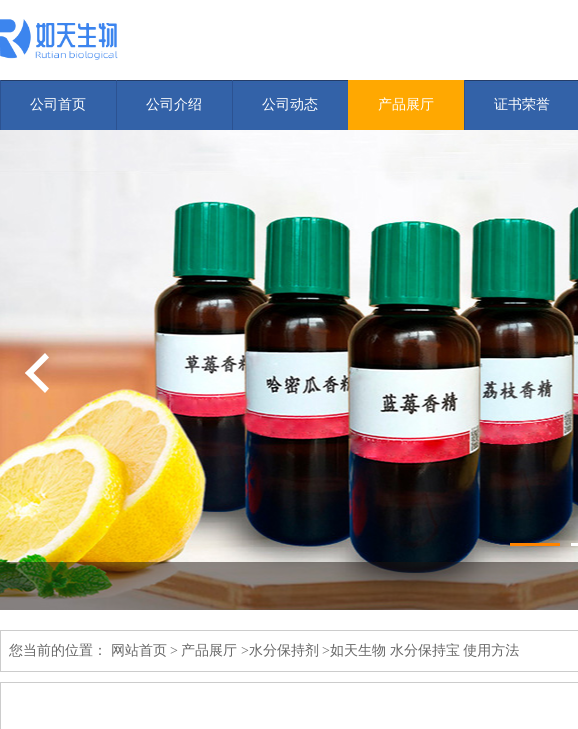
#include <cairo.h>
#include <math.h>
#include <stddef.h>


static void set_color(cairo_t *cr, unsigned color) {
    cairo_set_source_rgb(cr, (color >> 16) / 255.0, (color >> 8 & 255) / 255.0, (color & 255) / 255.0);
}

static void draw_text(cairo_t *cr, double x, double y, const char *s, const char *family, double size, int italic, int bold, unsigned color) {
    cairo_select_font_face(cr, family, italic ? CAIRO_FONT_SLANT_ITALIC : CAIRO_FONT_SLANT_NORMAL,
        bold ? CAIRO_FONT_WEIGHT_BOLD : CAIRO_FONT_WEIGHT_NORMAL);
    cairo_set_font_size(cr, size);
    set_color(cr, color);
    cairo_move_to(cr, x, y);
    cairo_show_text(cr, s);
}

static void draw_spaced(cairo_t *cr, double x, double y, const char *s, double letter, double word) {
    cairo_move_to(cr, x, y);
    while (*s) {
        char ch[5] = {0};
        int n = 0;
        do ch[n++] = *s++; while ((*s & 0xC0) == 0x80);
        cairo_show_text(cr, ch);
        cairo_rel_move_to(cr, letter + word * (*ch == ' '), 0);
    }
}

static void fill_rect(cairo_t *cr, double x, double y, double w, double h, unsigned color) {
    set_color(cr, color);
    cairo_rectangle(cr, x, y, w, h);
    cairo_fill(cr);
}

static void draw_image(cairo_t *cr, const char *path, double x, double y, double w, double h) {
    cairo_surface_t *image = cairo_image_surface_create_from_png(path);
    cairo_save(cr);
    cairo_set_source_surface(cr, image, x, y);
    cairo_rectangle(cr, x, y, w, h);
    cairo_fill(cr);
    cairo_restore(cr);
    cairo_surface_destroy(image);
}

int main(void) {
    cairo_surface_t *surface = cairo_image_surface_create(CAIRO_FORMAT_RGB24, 578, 729);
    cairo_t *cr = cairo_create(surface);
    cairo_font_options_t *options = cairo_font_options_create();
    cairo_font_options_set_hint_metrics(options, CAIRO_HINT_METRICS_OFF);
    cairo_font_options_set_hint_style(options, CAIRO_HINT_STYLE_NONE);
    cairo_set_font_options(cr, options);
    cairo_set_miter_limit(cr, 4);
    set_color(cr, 0xFFFFFF);
    cairo_paint(cr);
    draw_image(cr, "assets/img1.png", 0, 19, 118, 41);
    draw_image(cr, "assets/img2.png", 1, 80, 577, 50);
    fill_rect(cr, 0, 80, 1, 50, 0x2C5291);
    draw_text(cr, 30, 109, "公司首页", "WenQuanYi Zen Hei Medium", 14, 0, 0, 0xFFFFFF);
    fill_rect(cr, 116, 80, 1, 50, 0x2C5291);
    draw_text(cr, 146, 109, "公司介绍", "WenQuanYi Zen Hei Medium", 14, 0, 0, 0xFFFFFF);
    fill_rect(cr, 232, 80, 1, 50, 0x2C5291);
    draw_text(cr, 262, 109, "公司动态", "WenQuanYi Zen Hei Medium", 14, 0, 0, 0xFFFFFF);
    fill_rect(cr, 348, 80, 116, 50, 0xFFA801);
    draw_text(cr, 378, 109, "产品展厅", "WenQuanYi Zen Hei Medium", 14, 0, 0, 0xFFFFFF);
    fill_rect(cr, 464, 80, 1, 50, 0x2C5291);
    draw_text(cr, 494, 109, "证书荣誉", "WenQuanYi Zen Hei Medium", 14, 0, 0, 0xFFFFFF);
    draw_image(cr, "assets/img3.png", 0, 130, 578, 480);
    cairo_new_path(cr);
    cairo_move_to(cr, 45, 393);
    cairo_line_to(cr, 25, 373);
    cairo_line_to(cr, 29.5, 369);
    cairo_line_to(cr, 49, 388.5);
    cairo_close_path(cr);
    cairo_fill(cr);
    cairo_new_path(cr);
    cairo_move_to(cr, 29.5, 377);
    cairo_line_to(cr, 25, 373);
    cairo_line_to(cr, 45, 353);
    cairo_line_to(cr, 49, 357.5);
    cairo_close_path(cr);
    cairo_fill(cr);
    fill_rect(cr, 510, 543, 50, 3, 0xFF8400);
    fill_rect(cr, 571, 543, 7, 3, 0xFFFFFF);
    cairo_set_source_rgba(cr, 0.11, 0.071, 0.055, 0.5);
    cairo_rectangle(cr, 0, 562, 578, 48);
    cairo_fill(cr);
    cairo_rectangle(cr, 0.5, 630.5, 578, 41);
    set_color(cr, 0xCCCCCC);
    cairo_set_line_width(cr, 1);
    cairo_stroke(cr);
    draw_text(cr, 9, 655, "您当前的位置：", "WenQuanYi Zen Hei Medium", 14, 0, 0, 0x666666);
    draw_text(cr, 111, 655, "网站首页", "WenQuanYi Zen Hei Medium", 14, 0, 0, 0x666666);
    draw_text(cr, 170, 655, ">", "Liberation Serif", 14, 0, 0, 0x666666);
    draw_text(cr, 181, 655, "产品展厅", "WenQuanYi Zen Hei Medium", 14, 0, 0, 0x666666);
    draw_text(cr, 241, 655, ">", "Liberation Serif", 14, 0, 0, 0x666666);
    draw_text(cr, 249, 655, "水分保持剂", "WenQuanYi Zen Hei Medium", 14, 0, 0, 0x666666);
    draw_text(cr, 322, 655, ">", "Liberation Serif", 14, 0, 0, 0x666666);
    draw_text(cr, 330, 655, "如天生物", "WenQuanYi Zen Hei Medium", 14, 0, 0, 0x666666);
    draw_spaced(cr, 390, 655, "水分保持宝 使用方法", 0, -1);
    cairo_rectangle(cr, 0.5, 682.5, 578, 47);
    set_color(cr, 0xCCCCCC);
    cairo_stroke(cr);
    cairo_surface_write_to_png(surface, "output.png");
    cairo_font_options_destroy(options);
    cairo_destroy(cr);
    cairo_surface_destroy(surface);
    return 0;
}
